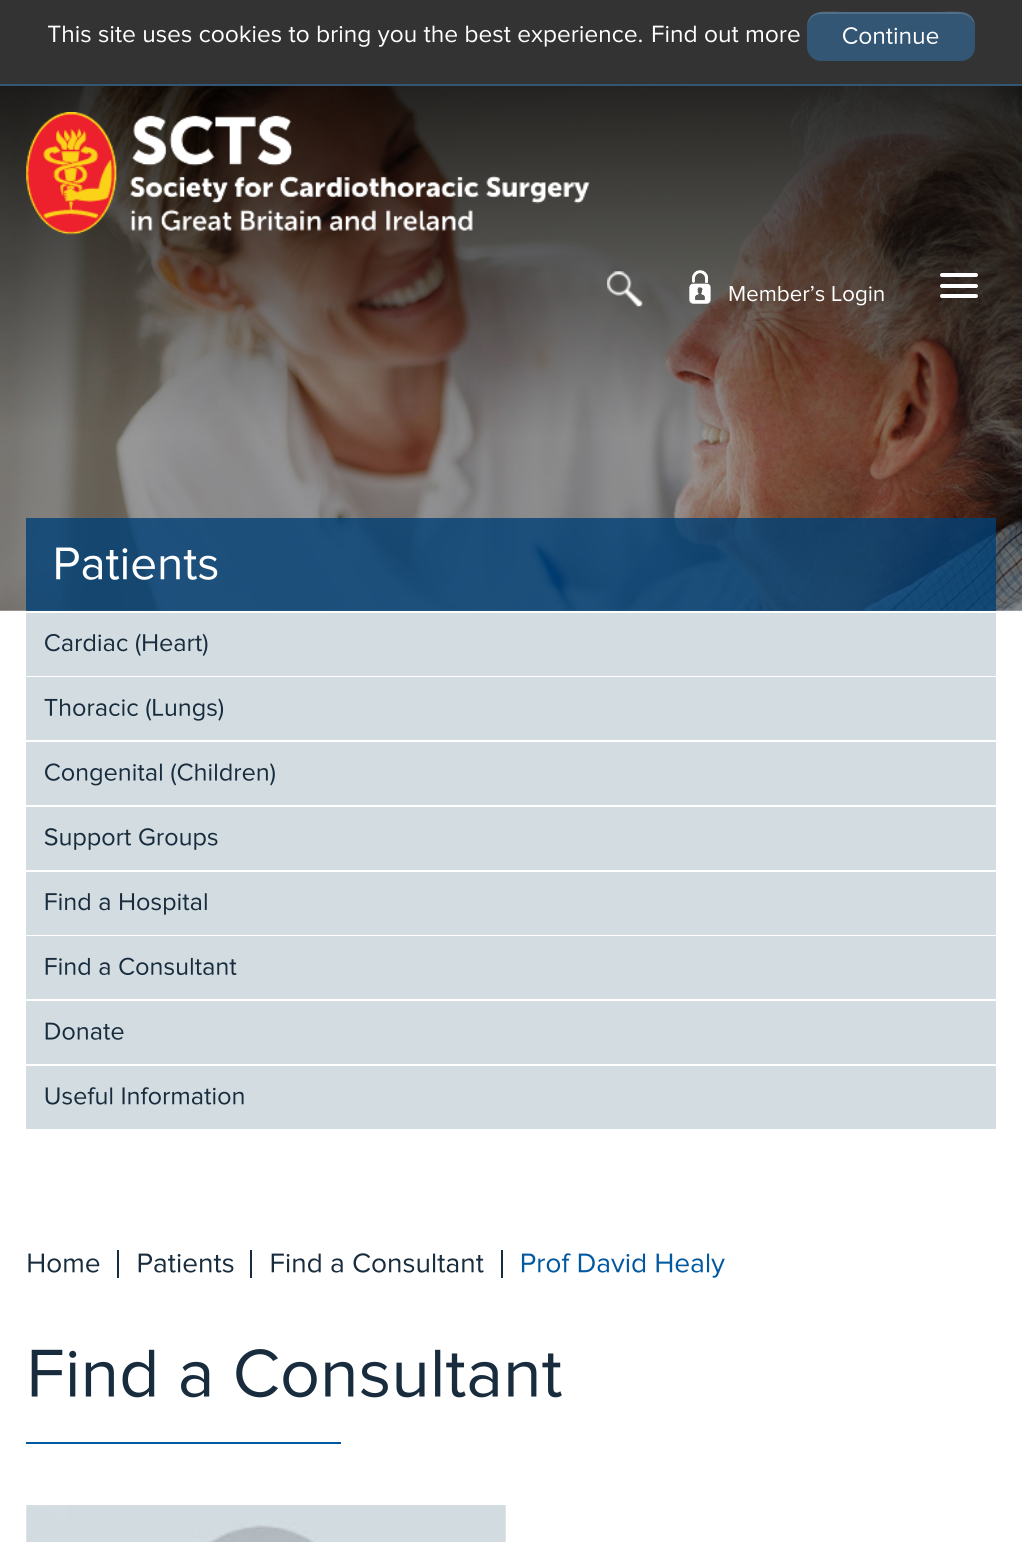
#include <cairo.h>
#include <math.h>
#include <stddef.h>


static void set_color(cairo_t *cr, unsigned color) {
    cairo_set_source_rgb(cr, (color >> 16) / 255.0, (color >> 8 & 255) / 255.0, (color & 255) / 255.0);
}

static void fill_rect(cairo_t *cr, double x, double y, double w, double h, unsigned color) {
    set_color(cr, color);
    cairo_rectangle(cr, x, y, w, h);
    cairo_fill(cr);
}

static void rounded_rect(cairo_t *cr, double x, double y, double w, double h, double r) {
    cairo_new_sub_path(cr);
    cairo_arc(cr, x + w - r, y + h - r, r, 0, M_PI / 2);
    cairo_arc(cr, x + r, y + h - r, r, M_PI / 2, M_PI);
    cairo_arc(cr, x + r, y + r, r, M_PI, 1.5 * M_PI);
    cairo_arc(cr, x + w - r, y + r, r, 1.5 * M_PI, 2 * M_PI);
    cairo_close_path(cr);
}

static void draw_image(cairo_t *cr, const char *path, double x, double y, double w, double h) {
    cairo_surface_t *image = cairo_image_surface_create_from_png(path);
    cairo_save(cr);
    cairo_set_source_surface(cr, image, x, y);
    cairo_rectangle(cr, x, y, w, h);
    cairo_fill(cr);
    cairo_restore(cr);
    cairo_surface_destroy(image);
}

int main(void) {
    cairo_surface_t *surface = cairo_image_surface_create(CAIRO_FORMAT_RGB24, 1022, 1542);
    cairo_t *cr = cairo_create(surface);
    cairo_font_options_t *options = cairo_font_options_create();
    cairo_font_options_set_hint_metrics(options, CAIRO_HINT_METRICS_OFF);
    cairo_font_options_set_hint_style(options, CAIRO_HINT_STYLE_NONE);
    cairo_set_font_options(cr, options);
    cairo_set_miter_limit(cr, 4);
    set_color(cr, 0xFFFFFF);
    cairo_paint(cr);
    cairo_set_source_rgba(cr, 0, 0, 0, 0.8);
    cairo_rectangle(cr, 0, 0, 1022, 84);
    cairo_fill(cr);
    fill_rect(cr, 0, 84, 1022, 2, 0x335674);
    draw_image(cr, "assets/img1.png", 48, 25, 594, 22);
    draw_image(cr, "assets/img2.png", 652, 25, 148, 18);
    rounded_rect(cr, 807, 12, 168, 49, 14);
    cairo_fill(cr);
    cairo_set_source_rgba(cr, 1, 1, 1, 0.15);
    cairo_new_path(cr);
    cairo_move_to(cr, 821, 14);
    cairo_line_to(cr, 961, 14);
    cairo_curve_to(cr, 968, 14, 975, 20, 975, 28);
    cairo_curve_to(cr, 975, 7, 952, 12, 938, 12);
    cairo_line_to(cr, 844, 12);
    cairo_curve_to(cr, 830, 12, 807, 7, 807, 28);
    cairo_curve_to(cr, 807, 20, 813, 14, 821, 14);
    cairo_close_path(cr);
    cairo_fill(cr);
    draw_image(cr, "assets/img3.png", 843, 27, 96, 17);
    draw_image(cr, "assets/img4.png", 0, 86, 1022, 525);
    cairo_set_source_rgba(cr, 0, 0.251, 0.459, 0.8);
    cairo_rectangle(cr, 26, 518, 970, 93);
    cairo_fill(cr);
    draw_image(cr, "assets/img5.png", 56, 547, 162, 33);
    fill_rect(cr, 26, 613, 970, 63, 0xD2DCE1);
    draw_image(cr, "assets/img6.png", 45, 633, 163, 23);
    fill_rect(cr, 26, 677, 970, 63, 0xD2DCE1);
    draw_image(cr, "assets/img7.png", 44, 698, 180, 23);
    fill_rect(cr, 26, 742, 970, 63, 0xD2DCE1);
    draw_image(cr, "assets/img8.png", 45, 763, 230, 23);
    fill_rect(cr, 26, 807, 970, 63, 0xD2DCE1);
    draw_image(cr, "assets/img9.png", 44, 828, 174, 22);
    fill_rect(cr, 26, 872, 970, 63, 0xD2DCE1);
    draw_image(cr, "assets/img10.png", 45, 893, 162, 22);
    fill_rect(cr, 26, 936, 970, 63, 0xD2DCE1);
    draw_image(cr, "assets/img11.png", 45, 957, 192, 19);
    fill_rect(cr, 26, 1001, 970, 63, 0xD2DCE1);
    draw_image(cr, "assets/img12.png", 45, 1022, 79, 18);
    fill_rect(cr, 26, 1066, 970, 63, 0xD2DCE1);
    draw_image(cr, "assets/img13.png", 45, 1087, 199, 18);
    draw_image(cr, "assets/img14.png", 28, 1253, 72, 20);
    fill_rect(cr, 117, 1250, 2, 28, 0x182C3D);
    draw_image(cr, "assets/img15.png", 138, 1253, 96, 20);
    fill_rect(cr, 250, 1250, 2, 28, 0x182C3D);
    draw_image(cr, "assets/img16.png", 271, 1253, 213, 20);
    fill_rect(cr, 501, 1250, 2, 28, 0x182C3D);
    draw_image(cr, "assets/img17.png", 521, 1253, 204, 25);
    draw_image(cr, "assets/img18.png", 31, 1349, 531, 49);
    fill_rect(cr, 26, 1442, 315, 2, 0x0058A1);
    draw_image(cr, "assets/img19.png", 26, 1505, 480, 37);
    draw_image(cr, "assets/img20.png", 26, 112, 564, 123);
    draw_image(cr, "assets/img21.png", 607, 271, 36, 36);
    draw_image(cr, "assets/img22.png", 689, 270, 22, 34);
    draw_image(cr, "assets/img23.png", 729, 285, 155, 21);
    set_color(cr, 0xFFFFFF);
    rounded_rect(cr, 940, 273, 38, 4, 2);
    cairo_fill(cr);
    rounded_rect(cr, 940, 284, 38, 4, 2);
    cairo_fill(cr);
    rounded_rect(cr, 940, 294, 38, 4, 2);
    cairo_fill(cr);
    cairo_surface_write_to_png(surface, "output.png");
    cairo_font_options_destroy(options);
    cairo_destroy(cr);
    cairo_surface_destroy(surface);
    return 0;
}
